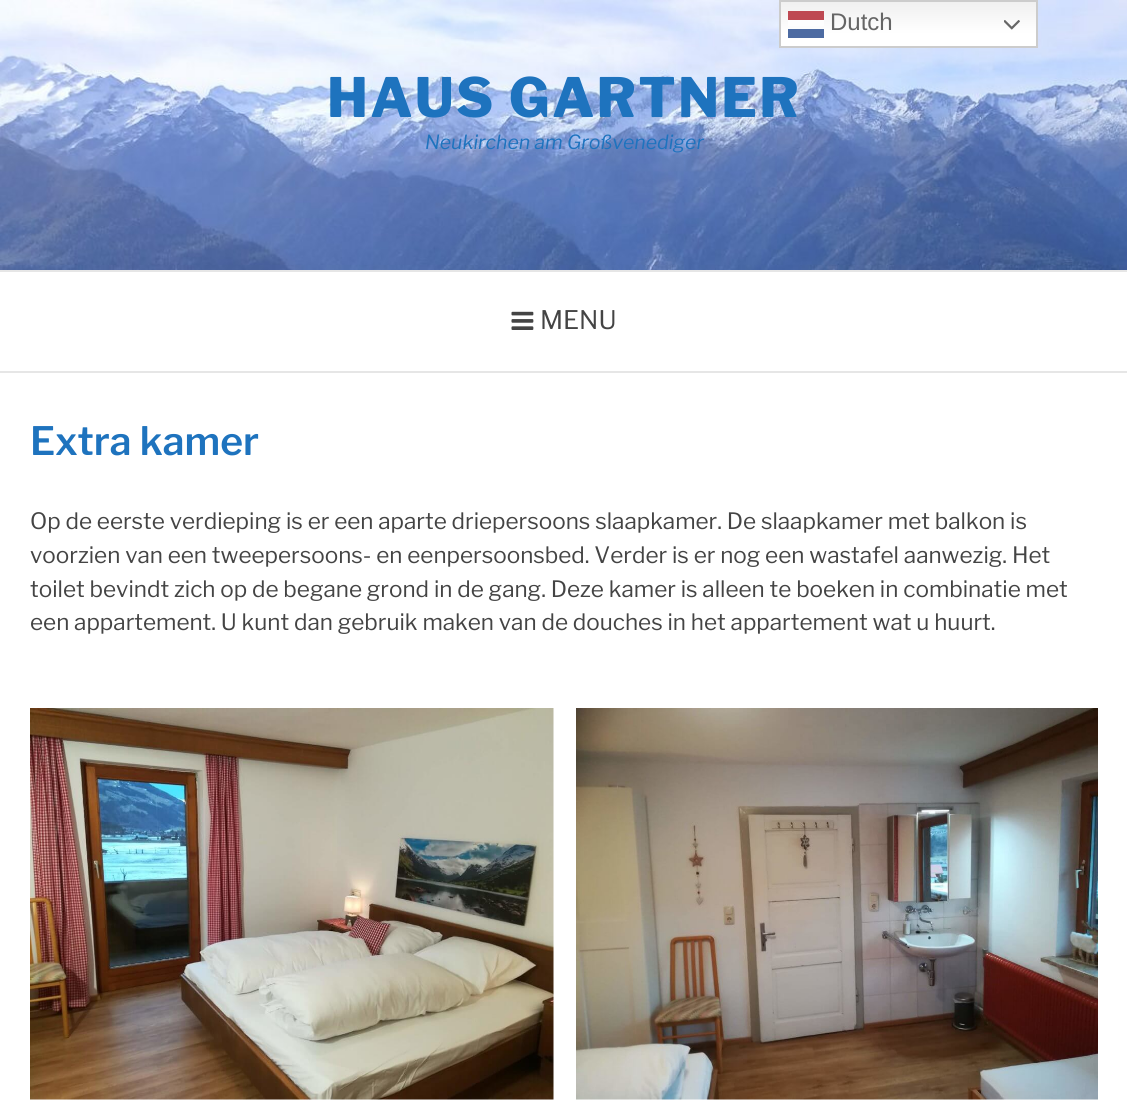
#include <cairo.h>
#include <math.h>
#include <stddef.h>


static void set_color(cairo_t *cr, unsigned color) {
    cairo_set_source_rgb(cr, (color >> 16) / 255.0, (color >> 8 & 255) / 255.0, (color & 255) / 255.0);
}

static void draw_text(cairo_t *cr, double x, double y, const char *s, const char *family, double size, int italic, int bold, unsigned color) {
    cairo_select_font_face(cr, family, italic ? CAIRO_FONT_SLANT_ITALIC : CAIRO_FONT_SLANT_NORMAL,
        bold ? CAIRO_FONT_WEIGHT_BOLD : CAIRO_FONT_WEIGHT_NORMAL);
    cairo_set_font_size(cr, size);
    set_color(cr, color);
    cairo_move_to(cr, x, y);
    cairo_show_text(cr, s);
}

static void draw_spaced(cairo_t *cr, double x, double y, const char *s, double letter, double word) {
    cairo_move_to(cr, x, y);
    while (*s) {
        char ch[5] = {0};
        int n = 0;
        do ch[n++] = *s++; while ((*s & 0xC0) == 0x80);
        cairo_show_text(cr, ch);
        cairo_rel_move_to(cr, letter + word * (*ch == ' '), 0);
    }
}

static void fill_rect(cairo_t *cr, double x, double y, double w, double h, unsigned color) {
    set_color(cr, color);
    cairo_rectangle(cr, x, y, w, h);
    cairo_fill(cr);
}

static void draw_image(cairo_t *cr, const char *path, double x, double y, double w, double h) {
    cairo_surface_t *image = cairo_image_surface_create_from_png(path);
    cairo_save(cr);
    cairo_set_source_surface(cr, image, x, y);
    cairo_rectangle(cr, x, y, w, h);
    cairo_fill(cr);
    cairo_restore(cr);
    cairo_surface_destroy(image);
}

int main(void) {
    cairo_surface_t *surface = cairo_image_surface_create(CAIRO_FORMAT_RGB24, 1127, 1115);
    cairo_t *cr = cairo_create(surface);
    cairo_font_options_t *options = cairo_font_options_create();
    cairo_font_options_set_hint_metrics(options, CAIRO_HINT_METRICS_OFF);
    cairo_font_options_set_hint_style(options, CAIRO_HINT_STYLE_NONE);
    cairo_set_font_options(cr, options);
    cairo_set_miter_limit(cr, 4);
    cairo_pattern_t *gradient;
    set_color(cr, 0xFFFFFF);
    cairo_paint(cr);
    draw_image(cr, "assets/img2.png", 0, 0, 1127, 270);
    gradient = cairo_pattern_create_linear(908, 0, 908, 48);
    cairo_pattern_add_color_stop_rgba(gradient, 0, 0.937, 0.937, 0.937, 1);
    cairo_pattern_add_color_stop_rgba(gradient, 0.7, 1, 1, 1, 1);
    cairo_set_source(cr, gradient);
    cairo_pattern_destroy(gradient);
    cairo_rectangle(cr, 781, 2, 255, 44);
    cairo_fill(cr);
    cairo_rectangle(cr, 780, 1, 257, 46);
    set_color(cr, 0xCCCCCC);
    cairo_stroke(cr);
    fill_rect(cr, 788, 11, 36, 9, 0xBE4953);
    draw_text(cr, 830, 30, "Dutch", "Liberation Sans", 24, 0, 0, 0x666666);
    cairo_set_source_rgba(cr, 1, 1, 1, 0.8);
    cairo_rectangle(cr, 788, 20, 36, 6);
    cairo_fill(cr);
    draw_image(cr, "assets/img1.png", 1004, 20, 16, 10);
    fill_rect(cr, 788, 29, 36, 9, 0x4D6BA2);
    cairo_select_font_face(cr, "Libre Franklin ExtraBold", CAIRO_FONT_SLANT_NORMAL, CAIRO_FONT_WEIGHT_NORMAL);
    cairo_set_font_size(cr, 54);
    set_color(cr, 0x1E73BE);
    draw_spaced(cr, 327, 117, "HAUS GARTNER", 2.25, 0);
    draw_text(cr, 425, 149, "Neukirchen am Großvenediger", "Libre Franklin", 19.5, 1, 0, 0x1E73BE);
    fill_rect(cr, 0, 270, 1127, 2, 0xE6E6E6);
    fill_rect(cr, 0, 371, 1127, 2, 0xE6E6E6);
    draw_image(cr, "assets/img3.png", 511, 311, 23, 19);
    draw_text(cr, 540, 329, "MENU", "Libre Franklin", 25.5, 0, 0, 0x444444);
    draw_text(cr, 30, 455, "Extra kamer", "Libre Franklin SemiBold", 39, 0, 0, 0x1E73BE);
    draw_text(cr, 30, 529, "Op de eerste verdieping is er een aparte driepersoons slaapkamer. De slaapkamer met balkon is", "Libre Franklin", 22.5, 0, 0, 0x444444);
    draw_text(cr, 30, 563, "voorzien van een tweepersoons- en eenpersoonsbed. Verder is er nog een wastafel aanwezig. Het", "Libre Franklin", 22.5, 0, 0, 0x444444);
    draw_text(cr, 30, 597, "toilet bevindt zich op de begane grond in de gang. Deze kamer is alleen te boeken in combinatie met", "Libre Franklin", 22.5, 0, 0, 0x444444);
    draw_text(cr, 30, 630, "een appartement. U kunt dan gebruik maken van de douches in het appartement wat u huurt.", "Libre Franklin", 22.5, 0, 0, 0x444444);
    draw_image(cr, "assets/img4.png", 30, 708, 524, 392);
    draw_image(cr, "assets/img5.png", 576, 708, 522, 392);
    cairo_surface_write_to_png(surface, "output.png");
    cairo_font_options_destroy(options);
    cairo_destroy(cr);
    cairo_surface_destroy(surface);
    return 0;
}
